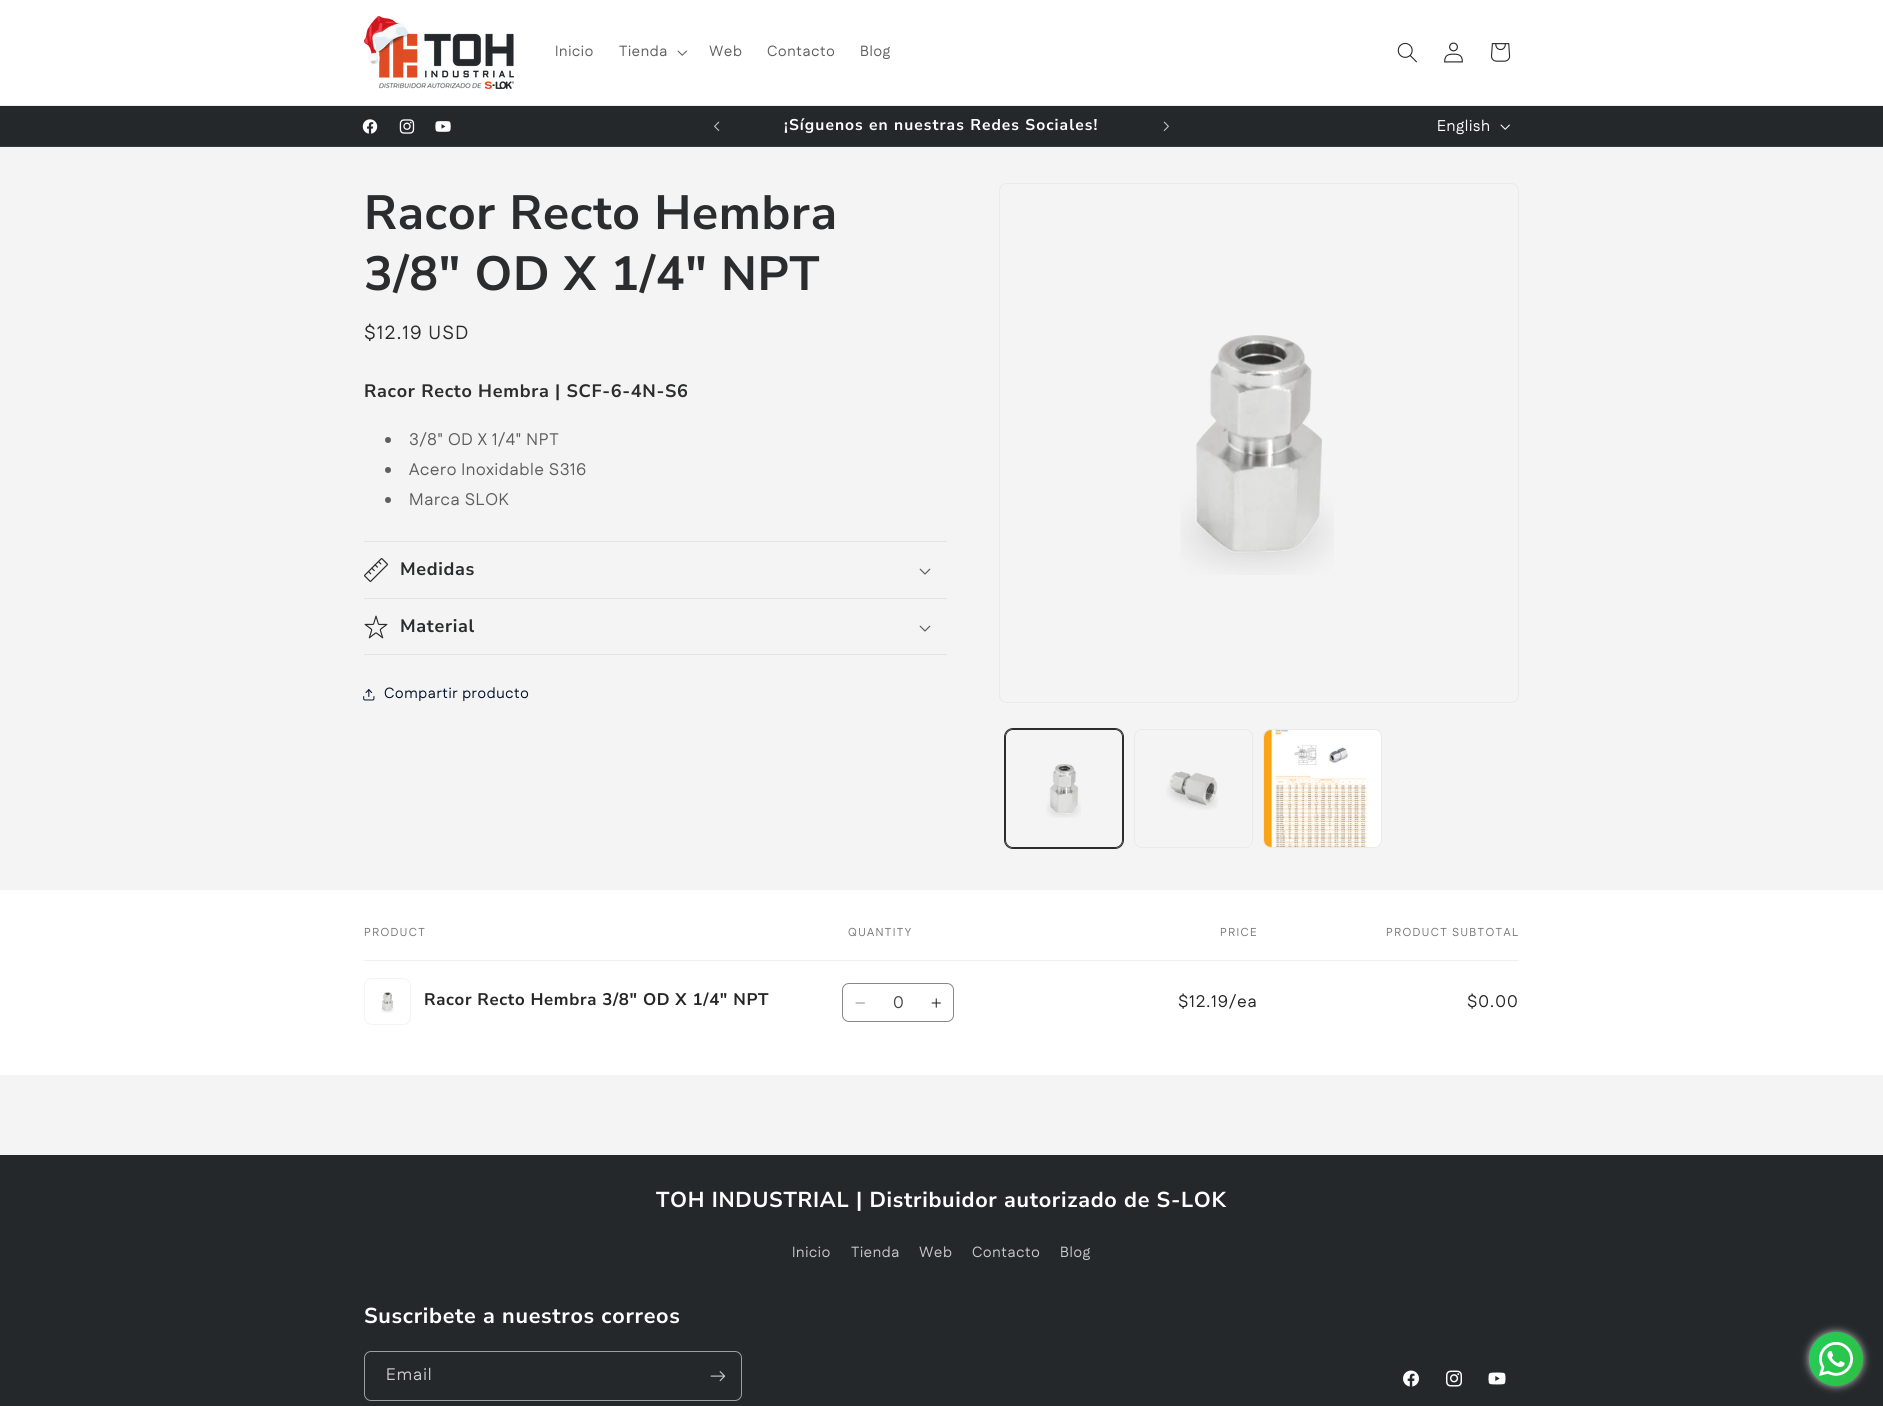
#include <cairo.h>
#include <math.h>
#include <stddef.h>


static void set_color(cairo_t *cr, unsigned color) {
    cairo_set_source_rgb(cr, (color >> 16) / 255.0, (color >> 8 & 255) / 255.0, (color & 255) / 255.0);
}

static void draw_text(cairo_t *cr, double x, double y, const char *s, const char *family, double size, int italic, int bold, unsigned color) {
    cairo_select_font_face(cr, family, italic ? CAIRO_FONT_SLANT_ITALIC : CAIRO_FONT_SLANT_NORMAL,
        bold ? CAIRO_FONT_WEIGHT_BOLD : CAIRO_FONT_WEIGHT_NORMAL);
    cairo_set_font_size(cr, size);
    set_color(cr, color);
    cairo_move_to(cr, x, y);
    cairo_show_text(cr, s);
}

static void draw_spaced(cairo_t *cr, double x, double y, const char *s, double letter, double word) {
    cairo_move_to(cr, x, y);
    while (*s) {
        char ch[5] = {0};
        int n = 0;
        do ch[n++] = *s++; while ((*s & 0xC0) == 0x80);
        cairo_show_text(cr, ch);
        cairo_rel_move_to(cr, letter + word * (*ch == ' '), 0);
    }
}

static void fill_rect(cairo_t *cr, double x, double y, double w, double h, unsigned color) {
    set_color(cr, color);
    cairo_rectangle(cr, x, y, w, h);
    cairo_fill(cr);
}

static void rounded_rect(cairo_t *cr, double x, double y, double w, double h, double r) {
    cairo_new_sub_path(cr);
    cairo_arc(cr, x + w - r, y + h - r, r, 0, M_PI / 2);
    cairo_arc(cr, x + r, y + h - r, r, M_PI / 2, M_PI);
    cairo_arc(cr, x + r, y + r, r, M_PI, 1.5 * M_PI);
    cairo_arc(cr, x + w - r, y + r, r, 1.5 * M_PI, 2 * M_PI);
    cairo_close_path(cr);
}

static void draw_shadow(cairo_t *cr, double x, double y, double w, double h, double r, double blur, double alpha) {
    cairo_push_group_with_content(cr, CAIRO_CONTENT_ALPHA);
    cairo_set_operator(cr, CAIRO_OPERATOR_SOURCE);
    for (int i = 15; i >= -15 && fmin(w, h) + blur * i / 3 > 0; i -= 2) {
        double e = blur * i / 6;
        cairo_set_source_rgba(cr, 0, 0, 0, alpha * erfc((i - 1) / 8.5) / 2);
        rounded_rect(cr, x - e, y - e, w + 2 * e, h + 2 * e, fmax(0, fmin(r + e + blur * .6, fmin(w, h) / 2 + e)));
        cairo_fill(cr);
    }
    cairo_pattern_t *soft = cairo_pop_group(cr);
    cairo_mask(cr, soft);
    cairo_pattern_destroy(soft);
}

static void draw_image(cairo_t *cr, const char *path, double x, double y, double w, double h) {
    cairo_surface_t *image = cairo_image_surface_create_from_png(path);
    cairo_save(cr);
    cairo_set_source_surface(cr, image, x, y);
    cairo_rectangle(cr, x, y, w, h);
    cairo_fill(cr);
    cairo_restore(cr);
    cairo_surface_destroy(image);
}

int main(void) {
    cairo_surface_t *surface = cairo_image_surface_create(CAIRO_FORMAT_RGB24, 1883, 1406);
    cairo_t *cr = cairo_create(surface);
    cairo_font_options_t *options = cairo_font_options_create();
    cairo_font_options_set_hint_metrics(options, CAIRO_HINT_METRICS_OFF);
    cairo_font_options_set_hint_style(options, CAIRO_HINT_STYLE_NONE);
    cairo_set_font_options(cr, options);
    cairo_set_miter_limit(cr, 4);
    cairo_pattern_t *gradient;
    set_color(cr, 0xF4F4F4);
    cairo_paint(cr);
    fill_rect(cr, 0, 0, 1883, 105, 0xFFFFFF);
    fill_rect(cr, 0, 105, 1883, 1, 0xEEEEEE);
    draw_image(cr, "assets/img1.png", 364, 16, 150, 73);
    cairo_select_font_face(cr, "Fustat", CAIRO_FONT_SLANT_NORMAL, CAIRO_FONT_WEIGHT_NORMAL);
    cairo_set_font_size(cr, 14.75);
    set_color(cr, 0x5D5E5F);
    draw_spaced(cr, 555, 56, "Inicio", 0.65, 0);
    draw_spaced(cr, 619, 56, "Tienda", 0.65, 0);
    draw_image(cr, "assets/img2.png", 677, 50, 10, 6);
    draw_spaced(cr, 709, 56, "Web", 0.65, 0);
    draw_spaced(cr, 767, 56, "Contacto", 0.65, 0);
    draw_spaced(cr, 860, 56, "Blog", 0.65, 0);
    draw_image(cr, "assets/img3.png", 1397, 42, 20, 21);
    draw_image(cr, "assets/img4.png", 1444, 42, 19, 21);
    draw_image(cr, "assets/img5.png", 1491, 43, 20, 19);
    fill_rect(cr, 0, 106, 1883, 40, 0x24282B);
    fill_rect(cr, 0, 146, 1883, 1, 0x36393C);
    draw_image(cr, "assets/img6.png", 362, 119, 16, 15);
    draw_image(cr, "assets/img7.png", 399, 119, 16, 15);
    draw_image(cr, "assets/img8.png", 435, 121, 16, 11);
    draw_image(cr, "assets/img9.png", 714, 121, 6, 10);
    cairo_select_font_face(cr, "Nunito Sans", CAIRO_FONT_SLANT_NORMAL, CAIRO_FONT_WEIGHT_BOLD);
    cairo_set_font_size(cr, 15.6);
    set_color(cr, 0xFFFFFF);
    draw_spaced(cr, 784, 130, "¡Síguenos en nuestras Redes Sociales!", 1.05, 0);
    draw_image(cr, "assets/img10.png", 1163, 121, 6, 10);
    cairo_select_font_face(cr, "Fustat", CAIRO_FONT_SLANT_NORMAL, CAIRO_FONT_WEIGHT_NORMAL);
    draw_spaced(cr, 1437, 131, "English", 0.65, 0);
    draw_image(cr, "assets/img11.png", 1500, 124, 10, 6);
    cairo_select_font_face(cr, "Nunito Sans", CAIRO_FONT_SLANT_NORMAL, CAIRO_FONT_WEIGHT_BOLD);
    cairo_set_font_size(cr, 48);
    set_color(cr, 0x2B2C2D);
    draw_spaced(cr, 364, 229, "Racor Recto Hembra", 0.7, 0);
    draw_spaced(cr, 364, 290, "3/8\" OD X 1/4\" NPT", 0.7, 0);
    cairo_select_font_face(cr, "Fustat", CAIRO_FONT_SLANT_NORMAL, CAIRO_FONT_WEIGHT_NORMAL);
    cairo_set_font_size(cr, 19);
    draw_spaced(cr, 364, 339, "$12.19 USD", 1.4, 0);
    cairo_select_font_face(cr, "Nunito Sans", CAIRO_FONT_SLANT_NORMAL, CAIRO_FONT_WEIGHT_BOLD);
    cairo_set_font_size(cr, 18);
    draw_spaced(cr, 364, 397, "Racor Recto Hembra | SCF-6-4N-S6", 0.7, 0);
    set_color(cr, 0x5D5E5F);
    cairo_new_path(cr);
    cairo_arc(cr, 388, 440, 3, 0, 2 * M_PI);
    cairo_fill(cr);
    cairo_select_font_face(cr, "Fustat", CAIRO_FONT_SLANT_NORMAL, CAIRO_FONT_WEIGHT_NORMAL);
    cairo_set_font_size(cr, 16.8);
    draw_spaced(cr, 409, 445, "3/8\" OD X 1/4\" NPT", 0.65, 0);
    cairo_new_path(cr);
    cairo_arc(cr, 388, 470, 3, 0, 2 * M_PI);
    cairo_fill(cr);
    draw_spaced(cr, 409, 475, "Acero Inoxidable S316", 0.65, 0);
    cairo_new_path(cr);
    cairo_arc(cr, 388, 500, 3, 0, 2 * M_PI);
    cairo_fill(cr);
    draw_spaced(cr, 409, 505, "Marca SLOK", 0.65, 0);
    fill_rect(cr, 364, 541, 583, 1, 0xE4E4E4);
    fill_rect(cr, 364, 598, 583, 1, 0xE4E4E4);
    draw_image(cr, "assets/img12.png", 364, 558, 24, 24);
    cairo_select_font_face(cr, "Nunito Sans", CAIRO_FONT_SLANT_NORMAL, CAIRO_FONT_WEIGHT_BOLD);
    cairo_set_font_size(cr, 18);
    set_color(cr, 0x2B2C2D);
    draw_spaced(cr, 400, 575, "Medidas", 0.7, 0);
    draw_image(cr, "assets/img13.png", 919, 568, 12, 7);
    fill_rect(cr, 364, 654, 583, 1, 0xE4E4E4);
    draw_image(cr, "assets/img14.png", 364, 615, 24, 24);
    set_color(cr, 0x2B2C2D);
    draw_spaced(cr, 400, 632, "Material", 0.7, 0);
    draw_image(cr, "assets/img13.png", 919, 625, 12, 7);
    draw_image(cr, "assets/img15.png", 363, 689, 12, 12);
    cairo_select_font_face(cr, "Fustat", CAIRO_FONT_SLANT_NORMAL, CAIRO_FONT_WEIGHT_NORMAL);
    cairo_set_font_size(cr, 14.75);
    set_color(cr, 0x001128);
    draw_spaced(cr, 384, 698, "Compartir producto", 0.65, 0);
    rounded_rect(cr, 999.5, 183.5, 519, 519, 7.5);
    set_color(cr, 0xEAEAEA);
    cairo_set_line_width(cr, 1);
    cairo_stroke(cr);
    draw_image(cr, "assets/img16.png", 1180, 335, 154, 240);
    rounded_rect(cr, 1004.5, 728.5, 119, 120, 8.5);
    set_color(cr, 0x2B2C2D);
    cairo_stroke(cr);
    rounded_rect(cr, 1005.5, 729.5, 117, 118, 7.5);
    cairo_stroke(cr);
    draw_image(cr, "assets/img17.png", 1046, 764, 35, 54);
    rounded_rect(cr, 1134.5, 729.5, 118, 118, 7.5);
    set_color(cr, 0xEAEAEA);
    cairo_stroke(cr);
    draw_image(cr, "assets/img18.png", 1166, 771, 52, 39);
    rounded_rect(cr, 1263.5, 729.5, 118, 118, 7.5);
    cairo_stroke(cr);
    draw_image(cr, "assets/img19.png", 1264, 730, 117, 117);
    fill_rect(cr, 0, 890, 1883, 185, 0xFFFFFF);
    fill_rect(cr, 364, 960, 1155, 1, 0xF0F0F0);
    cairo_set_font_size(cr, 11.5);
    set_color(cr, 0x757575);
    draw_spaced(cr, 364, 936, "PRODUCT", 1.4, 0);
    draw_spaced(cr, 848, 936, "QUANTITY", 1.4, 0);
    draw_spaced(cr, 1220, 936, "PRICE", 1.4, 0);
    draw_spaced(cr, 1386, 936, "PRODUCT SUBTOTAL", 1.4, 0);
    rounded_rect(cr, 364.5, 978.5, 46, 46, 7.5);
    set_color(cr, 0xF4F4F4);
    cairo_stroke(cr);
    draw_image(cr, "assets/img20.png", 381, 992, 13, 21);
    cairo_select_font_face(cr, "Nunito Sans", CAIRO_FONT_SLANT_NORMAL, CAIRO_FONT_WEIGHT_BOLD);
    cairo_set_font_size(cr, 16.8);
    set_color(cr, 0x262626);
    draw_spaced(cr, 424, 1005, "Racor Recto Hembra 3/8\" OD X 1/4\" NPT", 0.65, 0);
    draw_image(cr, "assets/img21.png", 855, 1002, 10, 2);
    draw_image(cr, "assets/img22.png", 931, 998, 10, 10);
    rounded_rect(cr, 842.5, 983.5, 111, 38, 6.5);
    set_color(cr, 0x888888);
    cairo_stroke(cr);
    draw_text(cr, 893, 1008, "0", "Fustat", 16.8, 0, 0, 0x474747);
    set_color(cr, 0x262626);
    draw_spaced(cr, 1178, 1007, "$12.19/ea", 1.05, 0);
    draw_spaced(cr, 1467, 1007, "$0.00", 1.05, 0);
    fill_rect(cr, 0, 1155, 1883, 251, 0x24282B);
    cairo_select_font_face(cr, "Nunito Sans", CAIRO_FONT_SLANT_NORMAL, CAIRO_FONT_WEIGHT_BOLD);
    cairo_set_font_size(cr, 21.6);
    set_color(cr, 0xFFFFFF);
    draw_spaced(cr, 656, 1207, "TOH INDUSTRIAL | Distribuidor autorizado de S-LOK", 0.7, 0);
    cairo_select_font_face(cr, "Fustat", CAIRO_FONT_SLANT_NORMAL, CAIRO_FONT_WEIGHT_NORMAL);
    cairo_set_font_size(cr, 14.75);
    set_color(cr, 0xC8C9CA);
    draw_spaced(cr, 792, 1257, "Inicio", 0.65, 0);
    draw_spaced(cr, 851, 1257, "Tienda", 0.65, 0);
    draw_spaced(cr, 919, 1257, "Web", 0.65, 0);
    draw_spaced(cr, 972, 1257, "Contacto", 0.65, 0);
    draw_spaced(cr, 1060, 1257, "Blog", 0.65, 0);
    cairo_select_font_face(cr, "Nunito Sans", CAIRO_FONT_SLANT_NORMAL, CAIRO_FONT_WEIGHT_BOLD);
    cairo_set_font_size(cr, 21.6);
    set_color(cr, 0xFFFFFF);
    draw_spaced(cr, 364, 1323, "Suscribete a nuestros correos", 0.7, 0);
    rounded_rect(cr, 364.5, 1351.5, 377, 49, 6.5);
    set_color(cr, 0x9C9EA0);
    cairo_stroke(cr);
    cairo_select_font_face(cr, "Fustat", CAIRO_FONT_SLANT_NORMAL, CAIRO_FONT_WEIGHT_NORMAL);
    cairo_set_font_size(cr, 16.8);
    set_color(cr, 0xC8C9CA);
    draw_spaced(cr, 386, 1380, "Email", 1.05, 0);
    draw_image(cr, "assets/img23.png", 710, 1371, 16, 11);
    draw_image(cr, "assets/img24.png", 1403, 1370, 16, 17);
    draw_image(cr, "assets/img25.png", 1446, 1370, 16, 17);
    draw_image(cr, "assets/img26.png", 1488, 1372, 18, 13);
    set_color(cr, 0xC2C2C2);
    draw_shadow(cr, 1809, 1332, 54, 54, 27, 4, 1);
    gradient = cairo_pattern_create_linear(1803, 1346, 1869, 1372);
    cairo_pattern_add_color_stop_rgba(gradient, 0, 0.133, 0.808, 0.353, 1);
    cairo_pattern_add_color_stop_rgba(gradient, 0, 0.133, 0.808, 0.353, 1);
    cairo_pattern_add_color_stop_rgba(gradient, 1, 0.188, 0.749, 0.259, 1);
    cairo_set_source(cr, gradient);
    cairo_pattern_destroy(gradient);
    cairo_arc(cr, 1836, 1359, 27, 0, 2 * M_PI);
    cairo_fill(cr);
    draw_image(cr, "assets/img27.png", 1819, 1342, 34, 34);
    cairo_surface_write_to_png(surface, "output.png");
    cairo_font_options_destroy(options);
    cairo_destroy(cr);
    cairo_surface_destroy(surface);
    return 0;
}
